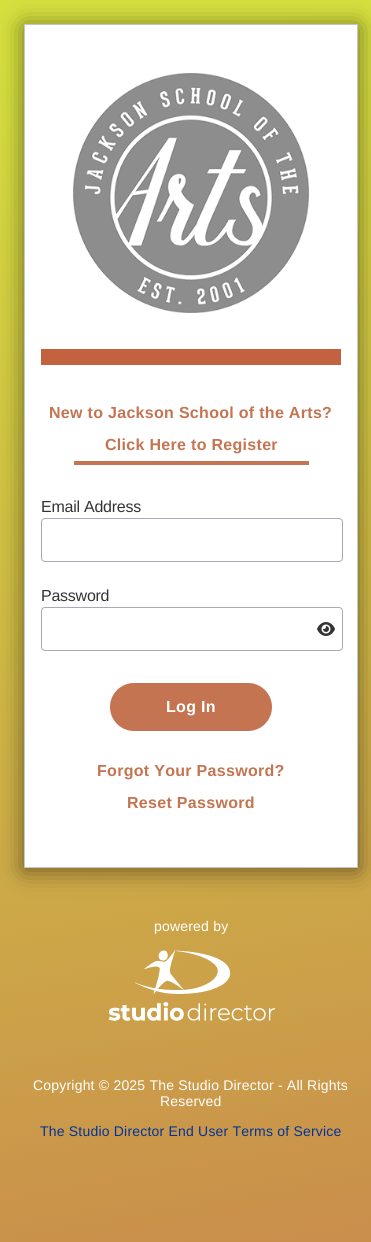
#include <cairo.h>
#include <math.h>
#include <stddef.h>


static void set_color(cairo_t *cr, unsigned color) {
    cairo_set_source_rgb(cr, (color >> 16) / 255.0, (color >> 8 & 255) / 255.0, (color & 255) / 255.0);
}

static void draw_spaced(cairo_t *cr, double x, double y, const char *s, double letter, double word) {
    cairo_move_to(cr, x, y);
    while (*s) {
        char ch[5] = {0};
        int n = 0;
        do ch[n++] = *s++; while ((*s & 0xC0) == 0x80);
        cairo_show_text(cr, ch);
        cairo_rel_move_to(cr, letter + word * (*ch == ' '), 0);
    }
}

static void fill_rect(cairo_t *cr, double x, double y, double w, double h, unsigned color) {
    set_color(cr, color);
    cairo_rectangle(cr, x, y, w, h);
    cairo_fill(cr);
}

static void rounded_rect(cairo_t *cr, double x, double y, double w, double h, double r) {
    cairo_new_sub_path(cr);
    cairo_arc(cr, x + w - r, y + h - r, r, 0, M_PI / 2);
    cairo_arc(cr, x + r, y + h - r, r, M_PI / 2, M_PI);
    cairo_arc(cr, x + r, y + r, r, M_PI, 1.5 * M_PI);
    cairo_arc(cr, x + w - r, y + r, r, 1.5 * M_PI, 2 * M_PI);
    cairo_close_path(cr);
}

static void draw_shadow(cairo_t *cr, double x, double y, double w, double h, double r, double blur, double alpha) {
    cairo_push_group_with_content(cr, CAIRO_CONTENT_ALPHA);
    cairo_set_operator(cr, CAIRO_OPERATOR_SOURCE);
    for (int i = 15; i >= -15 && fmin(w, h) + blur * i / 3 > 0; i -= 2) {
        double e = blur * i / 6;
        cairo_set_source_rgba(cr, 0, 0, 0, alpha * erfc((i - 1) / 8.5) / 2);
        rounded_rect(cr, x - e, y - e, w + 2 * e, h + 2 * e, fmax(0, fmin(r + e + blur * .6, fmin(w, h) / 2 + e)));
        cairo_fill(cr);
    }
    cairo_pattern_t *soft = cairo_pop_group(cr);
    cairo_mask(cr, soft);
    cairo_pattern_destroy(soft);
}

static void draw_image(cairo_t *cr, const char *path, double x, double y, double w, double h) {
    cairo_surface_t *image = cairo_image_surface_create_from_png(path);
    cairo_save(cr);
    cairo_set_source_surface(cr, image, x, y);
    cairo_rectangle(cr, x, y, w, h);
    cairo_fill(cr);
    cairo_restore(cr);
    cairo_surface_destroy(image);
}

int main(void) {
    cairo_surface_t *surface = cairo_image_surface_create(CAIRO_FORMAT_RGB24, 371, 1242);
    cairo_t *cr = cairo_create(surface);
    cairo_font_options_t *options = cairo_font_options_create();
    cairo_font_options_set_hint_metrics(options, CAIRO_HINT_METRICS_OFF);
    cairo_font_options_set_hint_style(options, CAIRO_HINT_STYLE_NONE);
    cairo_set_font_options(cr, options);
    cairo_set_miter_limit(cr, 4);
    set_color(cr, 0xFFFFFF);
    cairo_paint(cr);
    draw_image(cr, "assets/img1.png", 0, 0, 371, 1242);
    set_color(cr, 0x000000);
    draw_shadow(cr, 24, 26, 334, 844, 0, 12, 0.5);
    set_color(cr, 0xFFFFFF);
    cairo_rectangle(cr, 24.5, 24.5, 333, 843);
    cairo_fill_preserve(cr);
    set_color(cr, 0xC2C6CC);
    cairo_set_line_width(cr, 1);
    cairo_stroke(cr);
    draw_image(cr, "assets/img2.png", 73, 73, 236, 240);
    fill_rect(cr, 41, 349, 300, 16, 0xC36241);
    cairo_select_font_face(cr, "Liberation Sans", CAIRO_FONT_SLANT_NORMAL, CAIRO_FONT_WEIGHT_BOLD);
    cairo_set_font_size(cr, 16);
    set_color(cr, 0xC47451);
    draw_spaced(cr, 49, 418, "New to Jackson School of the Arts?", 0.3, 0);
    draw_spaced(cr, 105, 450, "Click Here to Register", 0.3, 0);
    fill_rect(cr, 74, 461, 235, 4, 0xC47451);
    cairo_select_font_face(cr, "Liberation Sans", CAIRO_FONT_SLANT_NORMAL, CAIRO_FONT_WEIGHT_NORMAL);
    set_color(cr, 0x333333);
    draw_spaced(cr, 41, 512, "Email Address", -0.25, 0);
    rounded_rect(cr, 41.5, 518.5, 301, 43, 3.5);
    set_color(cr, 0xA5AAB8);
    cairo_stroke(cr);
    set_color(cr, 0x333333);
    draw_spaced(cr, 41, 601, "Password", -0.25, 0);
    rounded_rect(cr, 41.5, 607.5, 301, 43, 3.5);
    set_color(cr, 0xA5AAB8);
    cairo_stroke(cr);
    draw_image(cr, "assets/img3.png", 317, 622, 18, 14);
    set_color(cr, 0xC47451);
    rounded_rect(cr, 110, 683, 162, 48, 24);
    cairo_fill(cr);
    cairo_select_font_face(cr, "Liberation Sans", CAIRO_FONT_SLANT_NORMAL, CAIRO_FONT_WEIGHT_BOLD);
    set_color(cr, 0xFFFFFF);
    draw_spaced(cr, 166, 712, "Log In", 0.3, 0);
    set_color(cr, 0xC47451);
    draw_spaced(cr, 97, 776, "Forgot Your Password?", 0.3, 0);
    draw_spaced(cr, 127, 808, "Reset Password", 0.3, 0);
    cairo_select_font_face(cr, "Liberation Sans", CAIRO_FONT_SLANT_NORMAL, CAIRO_FONT_WEIGHT_NORMAL);
    cairo_set_font_size(cr, 14);
    set_color(cr, 0xFFFFFF);
    draw_spaced(cr, 154, 931, "powered by", 0.2, 0);
    draw_image(cr, "assets/img4.png", 108, 950, 167, 71);
    draw_spaced(cr, 33, 1090, "Copyright © 2025 The Studio Director - All Rights", 0.2, 0);
    draw_spaced(cr, 160, 1106, "Reserved", 0.2, 0);
    set_color(cr, 0x003399);
    draw_spaced(cr, 40, 1136, "The Studio Director End User Terms of Service", 0.2, 0);
    cairo_surface_write_to_png(surface, "output.png");
    cairo_font_options_destroy(options);
    cairo_destroy(cr);
    cairo_surface_destroy(surface);
    return 0;
}
